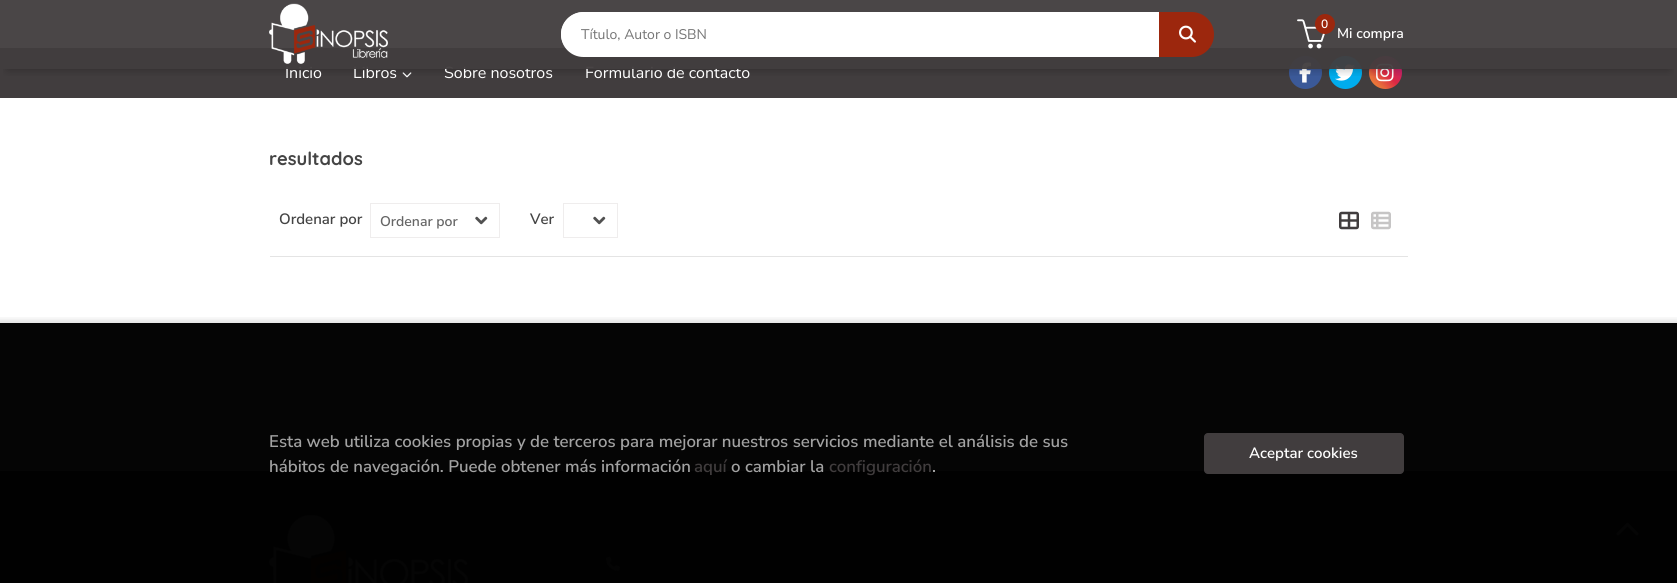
#include <cairo.h>
#include <math.h>
#include <stddef.h>


static void set_color(cairo_t *cr, unsigned color) {
    cairo_set_source_rgb(cr, (color >> 16) / 255.0, (color >> 8 & 255) / 255.0, (color & 255) / 255.0);
}

static void draw_text(cairo_t *cr, double x, double y, const char *s, const char *family, double size, int italic, int bold, unsigned color) {
    cairo_select_font_face(cr, family, italic ? CAIRO_FONT_SLANT_ITALIC : CAIRO_FONT_SLANT_NORMAL,
        bold ? CAIRO_FONT_WEIGHT_BOLD : CAIRO_FONT_WEIGHT_NORMAL);
    cairo_set_font_size(cr, size);
    set_color(cr, color);
    cairo_move_to(cr, x, y);
    cairo_show_text(cr, s);
}

static void fill_rect(cairo_t *cr, double x, double y, double w, double h, unsigned color) {
    set_color(cr, color);
    cairo_rectangle(cr, x, y, w, h);
    cairo_fill(cr);
}

static void rounded_rect(cairo_t *cr, double x, double y, double w, double h, double r) {
    cairo_new_sub_path(cr);
    cairo_arc(cr, x + w - r, y + h - r, r, 0, M_PI / 2);
    cairo_arc(cr, x + r, y + h - r, r, M_PI / 2, M_PI);
    cairo_arc(cr, x + r, y + r, r, M_PI, 1.5 * M_PI);
    cairo_arc(cr, x + w - r, y + r, r, 1.5 * M_PI, 2 * M_PI);
    cairo_close_path(cr);
}

static void draw_shadow(cairo_t *cr, double x, double y, double w, double h, double r, double blur, double alpha) {
    cairo_push_group_with_content(cr, CAIRO_CONTENT_ALPHA);
    cairo_set_operator(cr, CAIRO_OPERATOR_SOURCE);
    for (int i = 15; i >= -15 && fmin(w, h) + blur * i / 3 > 0; i -= 2) {
        double e = blur * i / 6;
        cairo_set_source_rgba(cr, 0, 0, 0, alpha * erfc((i - 1) / 8.5) / 2);
        rounded_rect(cr, x - e, y - e, w + 2 * e, h + 2 * e, fmax(0, fmin(r + e + blur * .6, fmin(w, h) / 2 + e)));
        cairo_fill(cr);
    }
    cairo_pattern_t *soft = cairo_pop_group(cr);
    cairo_mask(cr, soft);
    cairo_pattern_destroy(soft);
}

static void draw_image(cairo_t *cr, const char *path, double x, double y, double w, double h) {
    cairo_surface_t *image = cairo_image_surface_create_from_png(path);
    cairo_save(cr);
    cairo_set_source_surface(cr, image, x, y);
    cairo_rectangle(cr, x, y, w, h);
    cairo_fill(cr);
    cairo_restore(cr);
    cairo_surface_destroy(image);
}

int main(void) {
    cairo_surface_t *surface = cairo_image_surface_create(CAIRO_FORMAT_RGB24, 1677, 583);
    cairo_t *cr = cairo_create(surface);
    cairo_font_options_t *options = cairo_font_options_create();
    cairo_font_options_set_hint_metrics(options, CAIRO_HINT_METRICS_OFF);
    cairo_font_options_set_hint_style(options, CAIRO_HINT_STYLE_NONE);
    cairo_set_font_options(cr, options);
    cairo_set_miter_limit(cr, 4);
    cairo_pattern_t *gradient;
    set_color(cr, 0xFFFFFF);
    cairo_paint(cr);
    fill_rect(cr, 0, 323, 1677, 148, 0x050505);
    fill_rect(cr, 0, 48, 1677, 50, 0x413D3E);
    draw_image(cr, "assets/img4.png", 402, 72, 10, 6);
    set_color(cr, 0x3B5998);
    cairo_arc(cr, 1305.5, 72.5, 16.5, 0, 2 * M_PI);
    cairo_fill(cr);
    draw_image(cr, "assets/img5.png", 1299, 62, 12, 21);
    set_color(cr, 0x00ACED);
    cairo_arc(cr, 1345.5, 72.5, 16.5, 0, 2 * M_PI);
    cairo_fill(cr);
    draw_image(cr, "assets/img6.png", 1335, 64, 20, 17);
    gradient = cairo_pattern_create_linear(1369, 89, 1402, 56);
    cairo_pattern_add_color_stop_rgba(gradient, 0, 0.941, 0.58, 0.2, 1);
    cairo_pattern_add_color_stop_rgba(gradient, 0.25, 0.902, 0.408, 0.235, 1);
    cairo_pattern_add_color_stop_rgba(gradient, 0.5, 0.863, 0.153, 0.263, 1);
    cairo_pattern_add_color_stop_rgba(gradient, 0.75, 0.8, 0.137, 0.4, 1);
    cairo_pattern_add_color_stop_rgba(gradient, 1, 0.737, 0.094, 0.533, 1);
    cairo_set_source(cr, gradient);
    cairo_pattern_destroy(gradient);
    cairo_arc(cr, 1385.5, 72.5, 16.5, 0, 2 * M_PI);
    cairo_fill(cr);
    draw_image(cr, "assets/img7.png", 1376, 63, 18, 19);
    cairo_save(cr);
    cairo_rectangle(cr, 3, 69, 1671, 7);
    cairo_clip(cr);
    set_color(cr, 0x000000);
    draw_shadow(cr, 8, 13, 1661, 56, 0, 5, 0.3);
    cairo_restore(cr);
    draw_text(cr, 285, 78, "Inicio", "Nunito Sans", 16, 0, 0, 0xFFFFFF);
    draw_text(cr, 353, 78, "Libros", "Nunito Sans", 16, 0, 0, 0xFFFFFF);
    draw_text(cr, 444, 78, "Sobre nosotros", "Nunito Sans", 16, 0, 0, 0xFFFFFF);
    draw_text(cr, 585, 78, "Formulario de contacto", "Nunito Sans", 16, 0, 0, 0xFFFFFF);
    cairo_set_source_rgba(cr, 0.255, 0.239, 0.243, 0.95);
    cairo_rectangle(cr, 0, 0, 1677, 69);
    cairo_fill(cr);
    draw_image(cr, "assets/img1.png", 269, 3, 119, 61);
    set_color(cr, 0xFFFFFF);
    cairo_new_path(cr);
    cairo_move_to(cr, 583.5, 12);
    cairo_line_to(cr, 1159, 12);
    cairo_line_to(cr, 1159, 57);
    cairo_line_to(cr, 583.5, 57);
    cairo_curve_to(cr, 571, 57, 561, 47, 561, 34.5);
    cairo_curve_to(cr, 561, 22, 571, 12, 583.5, 12);
    cairo_close_path(cr);
    cairo_fill(cr);
    cairo_set_fill_rule(cr, CAIRO_FILL_RULE_EVEN_ODD);
    cairo_new_path(cr);
    cairo_move_to(cr, 584, 12);
    cairo_line_to(cr, 1159, 12);
    cairo_line_to(cr, 1159, 56);
    cairo_line_to(cr, 584, 56);
    cairo_curve_to(cr, 571, 56, 561, 46, 561, 34);
    cairo_curve_to(cr, 561, 22, 571, 12, 584, 12);
    cairo_close_path(cr);
    cairo_move_to(cr, 584, 14);
    cairo_line_to(cr, 1159, 14);
    cairo_line_to(cr, 1159, 54);
    cairo_line_to(cr, 584, 54);
    cairo_curve_to(cr, 572, 54, 563, 45, 563, 34);
    cairo_curve_to(cr, 563, 23, 572, 14, 584, 14);
    cairo_close_path(cr);
    cairo_fill(cr);
    draw_text(cr, 581, 39, "Título, Autor o ISBN", "Nunito Sans", 14, 0, 0, 0x757575);
    set_color(cr, 0x9C270D);
    cairo_new_path(cr);
    cairo_move_to(cr, 1159, 12);
    cairo_line_to(cr, 1191.5, 12);
    cairo_curve_to(cr, 1204, 12, 1214, 22, 1214, 34.5);
    cairo_curve_to(cr, 1214, 47, 1204, 57, 1191.5, 57);
    cairo_line_to(cr, 1159, 57);
    cairo_close_path(cr);
    cairo_fill(cr);
    draw_image(cr, "assets/img2.png", 1179, 25, 17, 18);
    draw_image(cr, "assets/img3.png", 1297, 19, 29, 30);
    cairo_arc(cr, 1325, 24, 10, 0, 2 * M_PI);
    cairo_fill(cr);
    draw_text(cr, 1321, 28, "0", "Nunito Sans SemiBold", 12, 0, 0, 0xFFFFFF);
    draw_text(cr, 1337, 38, "Mi compra", "Nunito Sans SemiBold", 14, 0, 0, 0xFFFFFF);
    draw_text(cr, 269, 165, "resultados", "Quicksand", 18.25, 0, 1, 0x444444);
    fill_rect(cr, 270, 256, 1138, 1, 0xE4E4E4);
    draw_text(cr, 279, 224, "Ordenar por", "Nunito Sans SemiBold", 15, 0, 0, 0x444444);
    draw_image(cr, "assets/img8.png", 475, 216, 13, 9);
    cairo_rectangle(cr, 370.5, 203.5, 129, 34);
    set_color(cr, 0xEFEDED);
    cairo_set_line_width(cr, 1);
    cairo_stroke(cr);
    draw_text(cr, 380, 226, "Ordenar por", "Nunito Sans SemiBold", 14, 0, 0, 0x666666);
    draw_text(cr, 530, 224, "Ver", "Nunito Sans SemiBold", 15, 0, 0, 0x444444);
    draw_image(cr, "assets/img8.png", 593, 216, 13, 9);
    cairo_rectangle(cr, 563.5, 203.5, 54, 34);
    set_color(cr, 0xEFEDED);
    cairo_stroke(cr);
    draw_image(cr, "assets/img9.png", 1339, 211, 20, 19);
    draw_image(cr, "assets/img10.png", 1371, 211, 20, 19);
    fill_rect(cr, 0, 471, 1677, 112, 0x010101);
    draw_image(cr, "assets/img11.png", 269, 515, 199, 68);
    draw_image(cr, "assets/img12.png", 606, 556, 14, 15);
    draw_image(cr, "assets/img13.png", 1616, 522, 23, 14);
    cairo_save(cr);
    cairo_set_fill_rule(cr, CAIRO_FILL_RULE_WINDING);
    cairo_rectangle(cr, 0, 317, 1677, 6);
    cairo_clip(cr);
    set_color(cr, 0x000000);
    draw_shadow(cr, -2, 321, 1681, 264, 0, 4, 0.15);
    cairo_restore(cr);
    draw_text(cr, 269, 447, "Esta web utiliza cookies propias y de terceros para mejorar nuestros servicios mediante el análisis de sus", "Nunito Sans SemiBold", 16.8, 0, 0, 0xA2A2A2);
    draw_text(cr, 269, 472, "hábitos de navegación. Puede obtener más información", "Nunito Sans SemiBold", 16.8, 0, 0, 0xA2A2A2);
    draw_text(cr, 694, 472, "aquí", "Nunito Sans SemiBold", 16.8, 0, 0, 0x413D3E);
    draw_text(cr, 731, 472, "o cambiar la", "Nunito Sans SemiBold", 16.8, 0, 0, 0xA2A2A2);
    draw_text(cr, 829, 472, "configuración", "Nunito Sans SemiBold", 16.8, 0, 0, 0x413D3E);
    draw_text(cr, 932, 472, ".", "Nunito Sans SemiBold", 16.8, 0, 0, 0xA2A2A2);
    set_color(cr, 0x413D3E);
    rounded_rect(cr, 1204.5, 433.5, 199, 40, 3.5);
    cairo_fill_preserve(cr);
    cairo_stroke(cr);
    draw_text(cr, 1249, 458, "Aceptar cookies", "Nunito Sans SemiBold", 15, 0, 0, 0xFFFFFF);
    cairo_surface_write_to_png(surface, "output.png");
    cairo_font_options_destroy(options);
    cairo_destroy(cr);
    cairo_surface_destroy(surface);
    return 0;
}
